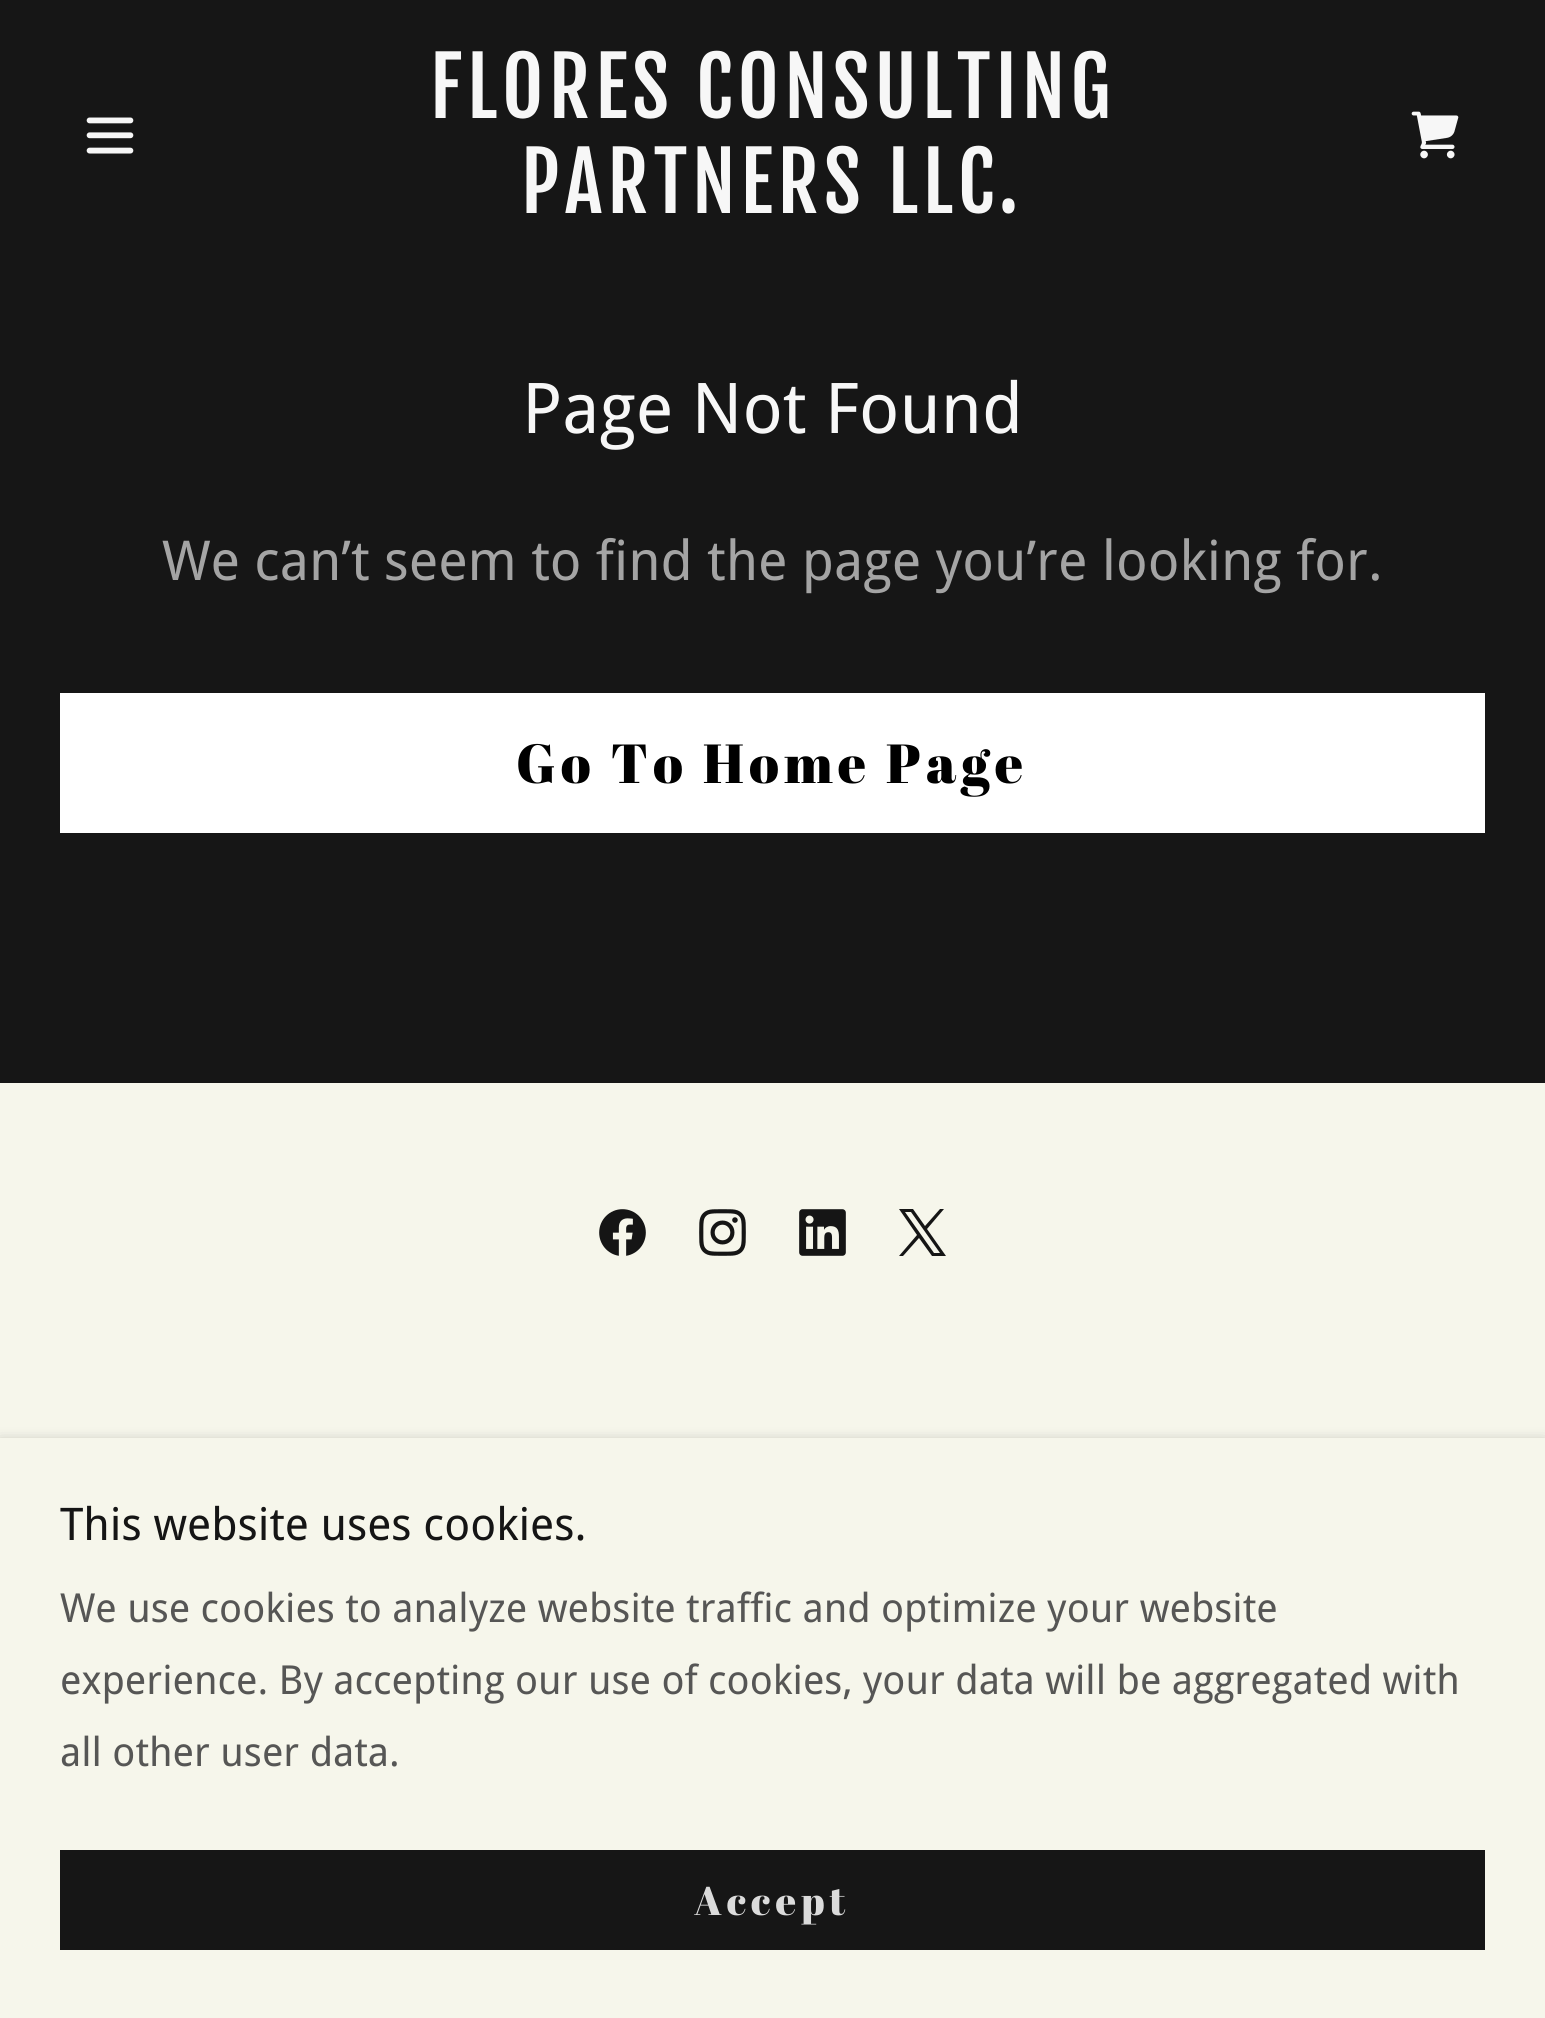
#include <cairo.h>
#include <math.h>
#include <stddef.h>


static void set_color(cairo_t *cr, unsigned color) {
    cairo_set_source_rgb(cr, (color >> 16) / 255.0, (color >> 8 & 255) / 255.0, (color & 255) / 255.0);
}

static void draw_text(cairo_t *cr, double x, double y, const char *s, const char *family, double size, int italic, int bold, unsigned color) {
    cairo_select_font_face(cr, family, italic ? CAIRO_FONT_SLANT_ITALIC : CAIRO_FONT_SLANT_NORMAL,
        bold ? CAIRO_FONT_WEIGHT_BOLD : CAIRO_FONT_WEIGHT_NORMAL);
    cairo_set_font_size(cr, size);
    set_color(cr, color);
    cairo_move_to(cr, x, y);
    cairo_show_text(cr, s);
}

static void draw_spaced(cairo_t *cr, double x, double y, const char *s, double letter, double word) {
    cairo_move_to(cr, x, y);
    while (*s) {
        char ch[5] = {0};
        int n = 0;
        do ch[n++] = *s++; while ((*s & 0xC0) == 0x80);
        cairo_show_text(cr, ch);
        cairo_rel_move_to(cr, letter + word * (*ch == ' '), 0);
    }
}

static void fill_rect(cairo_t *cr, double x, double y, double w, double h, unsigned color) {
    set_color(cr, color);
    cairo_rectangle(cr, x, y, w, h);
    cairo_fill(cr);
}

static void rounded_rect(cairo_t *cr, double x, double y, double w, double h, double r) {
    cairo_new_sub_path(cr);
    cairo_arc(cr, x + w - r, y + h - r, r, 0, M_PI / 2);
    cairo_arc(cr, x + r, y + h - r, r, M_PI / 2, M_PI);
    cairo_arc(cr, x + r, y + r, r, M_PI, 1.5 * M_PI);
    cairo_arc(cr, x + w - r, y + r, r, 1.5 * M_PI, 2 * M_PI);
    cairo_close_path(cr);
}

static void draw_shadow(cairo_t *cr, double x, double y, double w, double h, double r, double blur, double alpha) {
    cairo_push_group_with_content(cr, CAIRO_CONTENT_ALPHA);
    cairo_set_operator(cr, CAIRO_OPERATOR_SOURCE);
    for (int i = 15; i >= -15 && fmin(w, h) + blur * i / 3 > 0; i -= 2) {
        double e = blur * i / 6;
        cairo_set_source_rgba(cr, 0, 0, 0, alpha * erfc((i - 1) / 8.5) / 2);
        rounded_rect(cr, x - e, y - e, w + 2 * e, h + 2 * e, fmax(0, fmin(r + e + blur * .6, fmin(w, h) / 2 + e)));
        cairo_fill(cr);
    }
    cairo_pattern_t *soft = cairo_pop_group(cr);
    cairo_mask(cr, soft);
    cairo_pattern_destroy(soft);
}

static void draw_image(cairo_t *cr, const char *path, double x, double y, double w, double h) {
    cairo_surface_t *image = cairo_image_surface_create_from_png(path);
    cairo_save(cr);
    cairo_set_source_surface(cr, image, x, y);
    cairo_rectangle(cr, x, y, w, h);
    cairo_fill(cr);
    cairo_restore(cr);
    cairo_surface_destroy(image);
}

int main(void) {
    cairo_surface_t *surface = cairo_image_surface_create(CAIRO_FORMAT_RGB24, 1545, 2018);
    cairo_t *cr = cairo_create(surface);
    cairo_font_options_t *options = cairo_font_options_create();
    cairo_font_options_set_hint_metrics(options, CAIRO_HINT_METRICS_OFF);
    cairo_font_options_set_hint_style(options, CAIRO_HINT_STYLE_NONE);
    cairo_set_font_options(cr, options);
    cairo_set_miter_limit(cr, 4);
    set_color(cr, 0xF6F6EB);
    cairo_paint(cr);
    fill_rect(cr, 0, 0, 1545, 1083, 0x161616);
    draw_image(cr, "assets/img1.png", 86, 117, 48, 37);
    cairo_select_font_face(cr, "Fjalla One", CAIRO_FONT_SLANT_NORMAL, CAIRO_FONT_WEIGHT_NORMAL);
    cairo_set_font_size(cr, 80);
    set_color(cr, 0xF7F7F7);
    draw_spaced(cr, 430, 118, "FLORES CONSULTING", 5, 0);
    draw_spaced(cr, 521, 213, "PARTNERS LLC.", 5, 0);
    draw_image(cr, "assets/img2.png", 1411, 111, 48, 48);
    draw_text(cr, 522, 433, "Page Not Found", "Droid Sans", 70, 0, 0, 0xF7F7F7);
    draw_text(cr, 162, 580, "We can’t seem to find the page you’re looking for.", "Droid Sans", 55, 0, 0, 0xA4A4A4);
    fill_rect(cr, 60, 693, 1425, 140, 0xFFFFFF);
    cairo_select_font_face(cr, "Abril Fatface", CAIRO_FONT_SLANT_NORMAL, CAIRO_FONT_WEIGHT_NORMAL);
    set_color(cr, 0x000000);
    draw_spaced(cr, 516, 783, "Go To Home Page", 5, 0);
    draw_image(cr, "assets/img3.png", 599, 1209, 47, 47);
    draw_image(cr, "assets/img4.png", 699, 1209, 47, 47);
    draw_image(cr, "assets/img5.png", 799, 1209, 47, 47);
    set_color(cr, 0x151515);
    cairo_set_fill_rule(cr, CAIRO_FILL_RULE_EVEN_ODD);
    cairo_new_path(cr);
    cairo_move_to(cr, 899, 1209);
    cairo_line_to(cr, 917, 1235);
    cairo_line_to(cr, 899, 1256);
    cairo_line_to(cr, 903, 1256);
    cairo_line_to(cr, 919, 1238);
    cairo_line_to(cr, 932, 1256);
    cairo_line_to(cr, 946, 1256);
    cairo_line_to(cr, 927, 1229);
    cairo_line_to(cr, 944, 1209);
    cairo_line_to(cr, 940, 1209);
    cairo_line_to(cr, 925, 1226);
    cairo_line_to(cr, 913, 1209);
    cairo_close_path(cr);
    cairo_move_to(cr, 905, 1212);
    cairo_line_to(cr, 934, 1253);
    cairo_line_to(cr, 940, 1253);
    cairo_line_to(cr, 911, 1212);
    cairo_close_path(cr);
    cairo_fill(cr);
    set_color(cr, 0x000000);
    draw_shadow(cr, 0, 1443, 1545, 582, 0, 7.5, 0.3);
    fill_rect(cr, 0, 1438, 1545, 580, 0xF6F6EB);
    draw_text(cr, 60, 1540, "This website uses cookies.", "Droid Sans", 45, 0, 0, 0x151515);
    draw_text(cr, 60, 1622, "We use cookies to analyze website traffic and optimize your website", "Droid Sans", 40, 0, 0, 0x565655);
    draw_text(cr, 60, 1694, "experience. By accepting our use of cookies, your data will be aggregated with", "Droid Sans", 40, 0, 0, 0x565655);
    draw_text(cr, 60, 1766, "all other user data.", "Droid Sans", 40, 0, 0, 0x565655);
    fill_rect(cr, 60, 1850, 1425, 100, 0x161616);
    cairo_select_font_face(cr, "Abril Fatface", CAIRO_FONT_SLANT_NORMAL, CAIRO_FONT_WEIGHT_NORMAL);
    set_color(cr, 0xDBDBDB);
    draw_spaced(cr, 694, 1915, "Accept", 5, 0);
    cairo_surface_write_to_png(surface, "output.png");
    cairo_font_options_destroy(options);
    cairo_destroy(cr);
    cairo_surface_destroy(surface);
    return 0;
}
